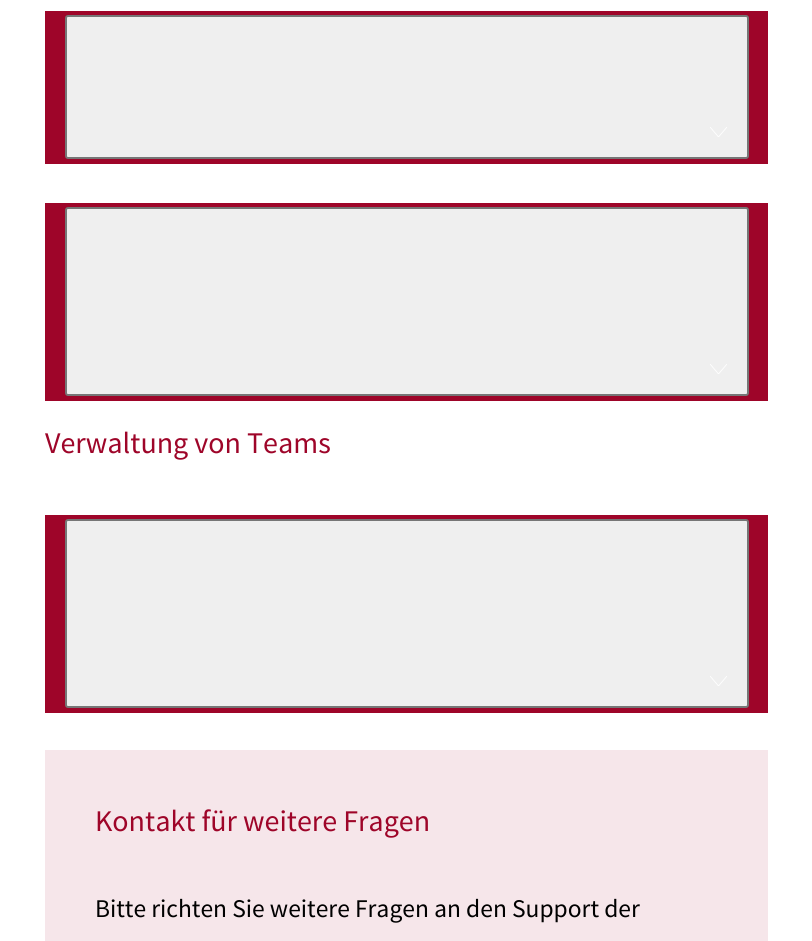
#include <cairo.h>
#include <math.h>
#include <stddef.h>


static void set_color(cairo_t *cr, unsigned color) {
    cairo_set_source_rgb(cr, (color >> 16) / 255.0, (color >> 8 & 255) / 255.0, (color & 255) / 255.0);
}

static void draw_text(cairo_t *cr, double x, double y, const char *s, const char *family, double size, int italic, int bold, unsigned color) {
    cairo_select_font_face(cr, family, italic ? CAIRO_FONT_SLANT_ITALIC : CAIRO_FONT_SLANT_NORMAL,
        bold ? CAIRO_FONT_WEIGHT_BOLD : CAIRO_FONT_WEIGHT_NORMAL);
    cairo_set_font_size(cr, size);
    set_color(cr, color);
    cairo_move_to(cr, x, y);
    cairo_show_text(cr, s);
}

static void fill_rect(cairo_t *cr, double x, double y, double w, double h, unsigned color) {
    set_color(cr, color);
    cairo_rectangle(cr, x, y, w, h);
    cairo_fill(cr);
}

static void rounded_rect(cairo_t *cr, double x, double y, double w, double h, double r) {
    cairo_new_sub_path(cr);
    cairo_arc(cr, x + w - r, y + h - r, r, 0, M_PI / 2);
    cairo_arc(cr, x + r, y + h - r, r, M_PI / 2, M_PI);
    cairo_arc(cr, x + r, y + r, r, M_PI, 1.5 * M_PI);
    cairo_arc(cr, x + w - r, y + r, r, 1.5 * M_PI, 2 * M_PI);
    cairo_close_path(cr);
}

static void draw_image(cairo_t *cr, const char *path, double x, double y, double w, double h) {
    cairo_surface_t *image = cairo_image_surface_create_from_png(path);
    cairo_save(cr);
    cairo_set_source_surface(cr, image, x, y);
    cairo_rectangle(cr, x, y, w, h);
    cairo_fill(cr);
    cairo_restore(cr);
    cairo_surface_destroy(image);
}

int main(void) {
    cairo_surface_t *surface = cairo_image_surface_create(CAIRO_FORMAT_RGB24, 812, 941);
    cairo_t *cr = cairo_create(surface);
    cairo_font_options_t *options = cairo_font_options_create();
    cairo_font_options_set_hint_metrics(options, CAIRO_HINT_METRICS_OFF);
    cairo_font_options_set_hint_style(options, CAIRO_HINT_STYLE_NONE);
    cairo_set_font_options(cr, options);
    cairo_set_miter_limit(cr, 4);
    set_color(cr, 0xFFFFFF);
    cairo_paint(cr);
    fill_rect(cr, 45, 11, 723, 153, 0x9E0529);
    set_color(cr, 0xEFEFEF);
    rounded_rect(cr, 66, 16, 682, 142, 2);
    cairo_fill_preserve(cr);
    set_color(cr, 0x767676);
    cairo_stroke(cr);
    draw_image(cr, "assets/img1.png", 710, 127, 17, 10);
    fill_rect(cr, 45, 203, 723, 198, 0x9E0529);
    set_color(cr, 0xEFEFEF);
    rounded_rect(cr, 66, 208, 682, 187, 2);
    cairo_fill_preserve(cr);
    set_color(cr, 0x767676);
    cairo_stroke(cr);
    draw_image(cr, "assets/img1.png", 710, 364, 17, 10);
    draw_text(cr, 45, 453, "Verwaltung von Teams", "Source Sans Pro", 30, 0, 0, 0x9E0529);
    fill_rect(cr, 45, 515, 723, 198, 0x9E0529);
    set_color(cr, 0xEFEFEF);
    rounded_rect(cr, 66, 520, 682, 187, 2);
    cairo_fill_preserve(cr);
    set_color(cr, 0x767676);
    cairo_stroke(cr);
    draw_image(cr, "assets/img1.png", 710, 676, 17, 10);
    fill_rect(cr, 45, 750, 723, 191, 0xF6E6EA);
    draw_text(cr, 95, 831, "Kontakt für weitere Fragen", "Source Sans Pro", 30, 0, 0, 0x9E0529);
    draw_text(cr, 95, 917, "Bitte richten Sie weitere Fragen an den Support der", "Source Sans Pro", 25.5, 0, 0, 0x000000);
    cairo_surface_write_to_png(surface, "output.png");
    cairo_font_options_destroy(options);
    cairo_destroy(cr);
    cairo_surface_destroy(surface);
    return 0;
}
